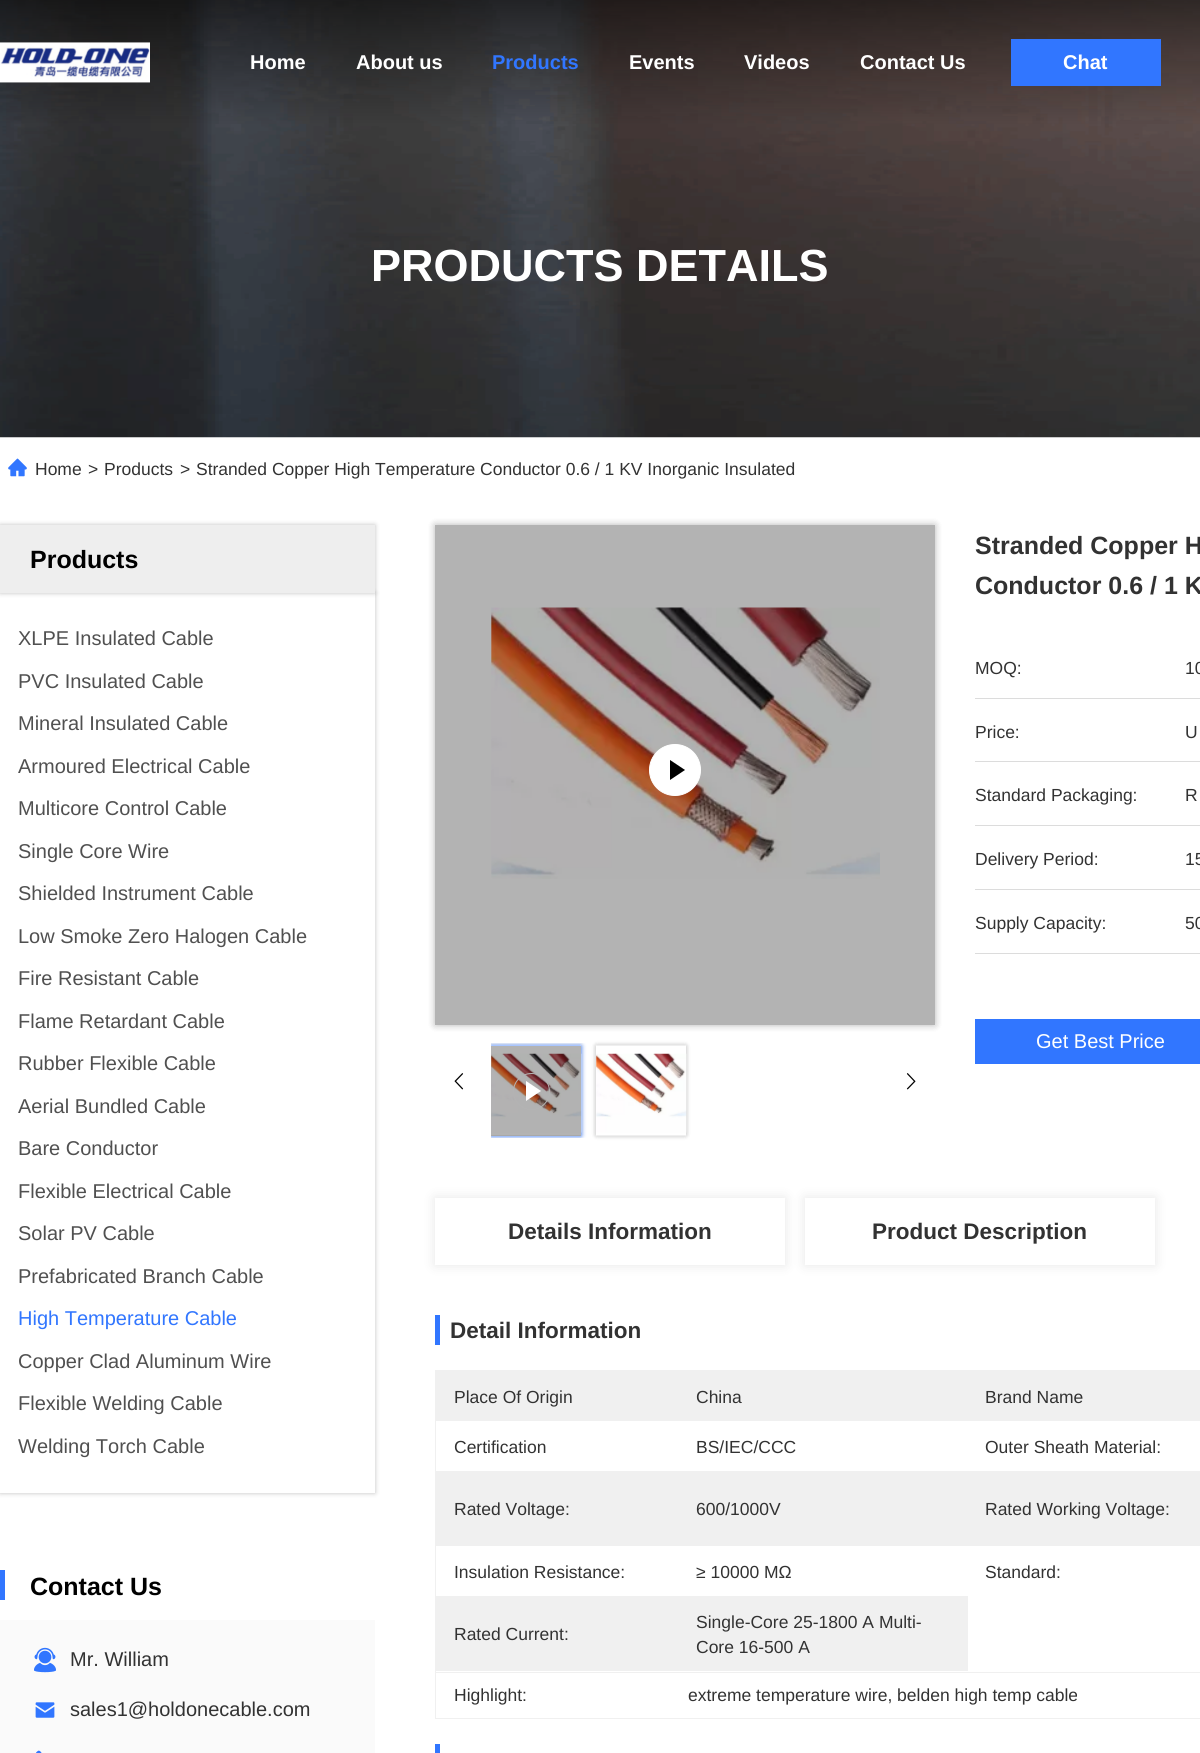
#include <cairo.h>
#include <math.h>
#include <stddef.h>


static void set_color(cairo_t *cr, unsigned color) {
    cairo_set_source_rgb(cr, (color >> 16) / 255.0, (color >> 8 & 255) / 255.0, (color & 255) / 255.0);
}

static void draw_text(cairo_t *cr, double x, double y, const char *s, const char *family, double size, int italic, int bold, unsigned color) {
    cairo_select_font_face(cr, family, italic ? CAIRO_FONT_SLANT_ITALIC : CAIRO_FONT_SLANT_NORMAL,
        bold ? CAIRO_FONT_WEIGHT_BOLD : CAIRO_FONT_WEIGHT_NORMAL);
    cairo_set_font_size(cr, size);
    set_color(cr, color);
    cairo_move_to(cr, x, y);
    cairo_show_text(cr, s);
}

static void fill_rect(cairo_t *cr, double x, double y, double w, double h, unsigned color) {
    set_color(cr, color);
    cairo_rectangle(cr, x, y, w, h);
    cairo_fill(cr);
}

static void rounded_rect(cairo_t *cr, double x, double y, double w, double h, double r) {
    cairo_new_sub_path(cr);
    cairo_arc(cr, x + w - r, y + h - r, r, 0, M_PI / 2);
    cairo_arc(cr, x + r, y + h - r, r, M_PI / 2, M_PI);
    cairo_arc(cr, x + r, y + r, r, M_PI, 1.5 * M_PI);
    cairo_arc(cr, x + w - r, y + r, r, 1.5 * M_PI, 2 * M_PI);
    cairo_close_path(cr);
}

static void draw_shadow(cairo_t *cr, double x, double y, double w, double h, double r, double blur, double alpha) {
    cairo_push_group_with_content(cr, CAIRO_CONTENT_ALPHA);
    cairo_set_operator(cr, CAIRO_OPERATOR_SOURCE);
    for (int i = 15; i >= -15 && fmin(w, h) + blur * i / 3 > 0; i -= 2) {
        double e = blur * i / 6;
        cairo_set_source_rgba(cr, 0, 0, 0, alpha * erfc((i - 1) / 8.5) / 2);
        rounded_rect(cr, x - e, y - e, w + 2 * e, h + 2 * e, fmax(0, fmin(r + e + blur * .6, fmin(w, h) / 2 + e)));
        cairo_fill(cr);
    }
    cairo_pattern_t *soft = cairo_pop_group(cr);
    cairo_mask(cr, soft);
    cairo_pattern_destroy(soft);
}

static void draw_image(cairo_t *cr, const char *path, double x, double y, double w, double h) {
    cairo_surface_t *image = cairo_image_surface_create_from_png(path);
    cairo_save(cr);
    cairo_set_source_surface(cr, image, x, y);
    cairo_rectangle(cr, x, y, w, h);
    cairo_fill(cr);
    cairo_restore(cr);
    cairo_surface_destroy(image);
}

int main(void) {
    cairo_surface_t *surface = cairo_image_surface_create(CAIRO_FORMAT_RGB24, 1200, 1753);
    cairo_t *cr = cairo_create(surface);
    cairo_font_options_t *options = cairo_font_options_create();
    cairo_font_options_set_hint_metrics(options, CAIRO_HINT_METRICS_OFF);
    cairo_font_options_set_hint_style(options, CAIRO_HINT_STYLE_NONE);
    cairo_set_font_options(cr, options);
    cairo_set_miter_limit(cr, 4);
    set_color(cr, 0xFFFFFF);
    cairo_paint(cr);
    draw_image(cr, "assets/img2.png", 0, 0, 1200, 438);
    draw_image(cr, "assets/img1.png", 0, 42, 150, 41);
    draw_text(cr, 250, 69, "Home", "Liberation Sans", 20, 0, 1, 0xFFFFFF);
    draw_text(cr, 356, 69, "About us", "Liberation Sans", 20, 0, 1, 0xFFFFFF);
    draw_text(cr, 492, 69, "Products", "Liberation Sans", 20, 0, 1, 0x3176FF);
    draw_text(cr, 629, 69, "Events", "Liberation Sans", 20, 0, 1, 0xFFFFFF);
    draw_text(cr, 744, 69, "Videos", "Liberation Sans", 20, 0, 1, 0xFFFFFF);
    draw_text(cr, 860, 69, "Contact Us", "Liberation Sans", 20, 0, 1, 0xFFFFFF);
    fill_rect(cr, 1011, 39, 150, 47, 0x3176FF);
    draw_text(cr, 1063, 69, "Chat", "Liberation Sans", 20, 0, 1, 0xFFFFFF);
    fill_rect(cr, 435, 525, 500, 500, 0xB3B3B3);
    draw_text(cr, 371, 281, "PRODUCTS DETAILS", "Liberation Sans", 45, 0, 1, 0xFFFFFF);
    draw_image(cr, "assets/img3.png", 8, 458, 19, 19);
    draw_text(cr, 35, 475, "Home", "Liberation Sans", 17.5, 0, 0, 0x323232);
    draw_text(cr, 88, 475, ">", "Liberation Sans", 17.5, 0, 0, 0x323232);
    draw_text(cr, 104, 475, "Products", "Liberation Sans", 17.5, 0, 0, 0x323232);
    draw_text(cr, 180, 475, ">", "Liberation Sans", 17.5, 0, 0, 0x323232);
    draw_text(cr, 196, 475, "Stranded Copper High Temperature Conductor 0.6 / 1 KV Inorganic Insulated", "Liberation Sans", 17.5, 0, 0, 0x323232);
    set_color(cr, 0x000000);
    draw_shadow(cr, 0, 593, 375, 900, 0, 2.5, 0.25);
    fill_rect(cr, 0, 593, 375, 900, 0xFFFFFF);
    set_color(cr, 0x000000);
    draw_shadow(cr, 0, 525, 375, 68, 0, 2.5, 0.25);
    fill_rect(cr, 0, 525, 375, 68, 0xEEEEEE);
    draw_text(cr, 30, 568, "Products", "Liberation Sans", 25, 0, 1, 0x000000);
    draw_text(cr, 18, 645, "XLPE Insulated Cable", "Liberation Sans", 20, 0, 0, 0x505050);
    draw_text(cr, 18, 688, "PVC Insulated Cable", "Liberation Sans", 20, 0, 0, 0x505050);
    draw_text(cr, 18, 730, "Mineral Insulated Cable", "Liberation Sans", 20, 0, 0, 0x505050);
    draw_text(cr, 18, 773, "Armoured Electrical Cable", "Liberation Sans", 20, 0, 0, 0x505050);
    draw_text(cr, 18, 815, "Multicore Control Cable", "Liberation Sans", 20, 0, 0, 0x505050);
    draw_text(cr, 18, 858, "Single Core Wire", "Liberation Sans", 20, 0, 0, 0x505050);
    draw_text(cr, 18, 900, "Shielded Instrument Cable", "Liberation Sans", 20, 0, 0, 0x505050);
    draw_text(cr, 18, 943, "Low Smoke Zero Halogen Cable", "Liberation Sans", 20, 0, 0, 0x505050);
    draw_text(cr, 18, 985, "Fire Resistant Cable", "Liberation Sans", 20, 0, 0, 0x505050);
    draw_text(cr, 18, 1028, "Flame Retardant Cable", "Liberation Sans", 20, 0, 0, 0x505050);
    draw_text(cr, 18, 1070, "Rubber Flexible Cable", "Liberation Sans", 20, 0, 0, 0x505050);
    draw_text(cr, 18, 1113, "Aerial Bundled Cable", "Liberation Sans", 20, 0, 0, 0x505050);
    draw_text(cr, 18, 1155, "Bare Conductor", "Liberation Sans", 20, 0, 0, 0x505050);
    draw_text(cr, 18, 1198, "Flexible Electrical Cable", "Liberation Sans", 20, 0, 0, 0x505050);
    draw_text(cr, 18, 1240, "Solar PV Cable", "Liberation Sans", 20, 0, 0, 0x505050);
    draw_text(cr, 18, 1283, "Prefabricated Branch Cable", "Liberation Sans", 20, 0, 0, 0x505050);
    draw_text(cr, 18, 1325, "High Temperature Cable", "Liberation Sans", 20, 0, 0, 0x3176FF);
    draw_text(cr, 18, 1368, "Copper Clad Aluminum Wire", "Liberation Sans", 20, 0, 0, 0x505050);
    draw_text(cr, 18, 1410, "Flexible Welding Cable", "Liberation Sans", 20, 0, 0, 0x505050);
    draw_text(cr, 18, 1453, "Welding Torch Cable", "Liberation Sans", 20, 0, 0, 0x505050);
    fill_rect(cr, 0, 1570, 5, 30, 0x3176FF);
    draw_text(cr, 30, 1595, "Contact Us", "Liberation Sans", 25, 0, 1, 0x000000);
    fill_rect(cr, 0, 1620, 375, 133, 0xFAFAFA);
    draw_image(cr, "assets/img4.png", 34, 1647, 22, 26);
    draw_text(cr, 70, 1666, "Mr. William", "Liberation Sans", 20, 0, 0, 0x323232);
    draw_image(cr, "assets/img5.png", 35, 1702, 20, 16);
    draw_text(cr, 70, 1716, "sales1@holdonecable.com", "Liberation Sans", 20, 0, 0, 0x323232);
    draw_image(cr, "assets/img6.png", 36, 1750, 6, 3);
    cairo_save(cr);
    cairo_set_fill_rule(cr, CAIRO_FILL_RULE_EVEN_ODD);
    cairo_new_path(cr);
    cairo_move_to(cr, 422, 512);
    cairo_line_to(cr, 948, 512);
    cairo_line_to(cr, 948, 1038);
    cairo_line_to(cr, 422, 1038);
    cairo_close_path(cr);
    cairo_move_to(cr, 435, 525);
    cairo_line_to(cr, 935, 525);
    cairo_line_to(cr, 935, 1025);
    cairo_line_to(cr, 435, 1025);
    cairo_close_path(cr);
    cairo_clip(cr);
    set_color(cr, 0x000000);
    draw_shadow(cr, 435, 525, 500, 500, 0, 4, 0.15);
    draw_shadow(cr, 435, 525, 500, 500, 0, 4, 0.15);
    cairo_restore(cr);
    draw_image(cr, "assets/img7.png", 491, 607, 389, 272);
    set_color(cr, 0xFFFFFF);
    cairo_arc(cr, 675, 770, 25.5, 0, 2 * M_PI);
    cairo_fill_preserve(cr);
    cairo_set_line_width(cr, 1);
    cairo_stroke(cr);
    set_color(cr, 0x000000);
    cairo_new_path(cr);
    cairo_move_to(cr, 670, 780);
    cairo_line_to(cr, 670, 760);
    cairo_line_to(cr, 685, 770);
    cairo_close_path(cr);
    cairo_fill(cr);
    draw_image(cr, "assets/img8.png", 454, 1073, 10, 17);
    cairo_save(cr);
    cairo_rectangle(cr, 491, 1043, 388, 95);
    cairo_clip(cr);
    cairo_set_fill_rule(cr, CAIRO_FILL_RULE_EVEN_ODD);
    cairo_new_path(cr);
    cairo_move_to(cr, 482, 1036);
    cairo_line_to(cr, 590, 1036);
    cairo_line_to(cr, 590, 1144);
    cairo_line_to(cr, 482, 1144);
    cairo_close_path(cr);
    cairo_move_to(cr, 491, 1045);
    cairo_line_to(cr, 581, 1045);
    cairo_line_to(cr, 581, 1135);
    cairo_line_to(cr, 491, 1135);
    cairo_close_path(cr);
    cairo_clip(cr);
    set_color(cr, 0x000000);
    draw_shadow(cr, 491, 1045, 90, 90, 0, 2.5, 0.15);
    cairo_restore(cr);
    cairo_save(cr);
    cairo_rectangle(cr, 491, 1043, 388, 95);
    cairo_clip(cr);
    cairo_set_fill_rule(cr, CAIRO_FILL_RULE_EVEN_ODD);
    cairo_new_path(cr);
    cairo_move_to(cr, 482, 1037);
    cairo_line_to(cr, 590, 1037);
    cairo_line_to(cr, 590, 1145);
    cairo_line_to(cr, 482, 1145);
    cairo_close_path(cr);
    cairo_move_to(cr, 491, 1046);
    cairo_line_to(cr, 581, 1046);
    cairo_line_to(cr, 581, 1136);
    cairo_line_to(cr, 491, 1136);
    cairo_close_path(cr);
    cairo_clip(cr);
    set_color(cr, 0x3176FF);
    draw_shadow(cr, 491, 1046, 90, 90, 0, 2.5, 1);
    cairo_restore(cr);
    draw_image(cr, "assets/img9.png", 491, 1053, 91, 80);
    cairo_arc(cr, 531.5, 1091.5, 18, 0, 2 * M_PI);
    set_color(cr, 0xFFFFFF);
    cairo_stroke(cr);
    cairo_set_source_rgba(cr, 0, 0, 0, 0.3);
    cairo_rectangle(cr, 491, 1046, 90, 90);
    cairo_fill(cr);
    set_color(cr, 0xFFFFFF);
    cairo_new_path(cr);
    cairo_move_to(cr, 526, 1101);
    cairo_line_to(cr, 526, 1081);
    cairo_line_to(cr, 541, 1091);
    cairo_close_path(cr);
    cairo_fill(cr);
    cairo_save(cr);
    cairo_set_fill_rule(cr, CAIRO_FILL_RULE_EVEN_ODD);
    cairo_new_path(cr);
    cairo_move_to(cr, 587, 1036);
    cairo_line_to(cr, 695, 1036);
    cairo_line_to(cr, 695, 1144);
    cairo_line_to(cr, 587, 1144);
    cairo_close_path(cr);
    cairo_move_to(cr, 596, 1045);
    cairo_line_to(cr, 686, 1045);
    cairo_line_to(cr, 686, 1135);
    cairo_line_to(cr, 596, 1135);
    cairo_close_path(cr);
    cairo_clip(cr);
    set_color(cr, 0x000000);
    draw_shadow(cr, 596, 1045, 90, 90, 0, 2.5, 0.15);
    cairo_restore(cr);
    cairo_save(cr);
    cairo_set_fill_rule(cr, CAIRO_FILL_RULE_EVEN_ODD);
    cairo_new_path(cr);
    cairo_move_to(cr, 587, 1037);
    cairo_line_to(cr, 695, 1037);
    cairo_line_to(cr, 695, 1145);
    cairo_line_to(cr, 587, 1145);
    cairo_close_path(cr);
    cairo_move_to(cr, 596, 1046);
    cairo_line_to(cr, 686, 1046);
    cairo_line_to(cr, 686, 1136);
    cairo_line_to(cr, 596, 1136);
    cairo_close_path(cr);
    cairo_clip(cr);
    set_color(cr, 0x000000);
    draw_shadow(cr, 596, 1046, 90, 90, 0, 2.5, 0.15);
    cairo_restore(cr);
    draw_image(cr, "assets/img10.png", 596, 1053, 91, 80);
    draw_image(cr, "assets/img11.png", 906, 1073, 10, 17);
    draw_text(cr, 975, 554, "Stranded Copper H", "Liberation Sans", 25, 0, 1, 0x323232);
    draw_text(cr, 975, 594, "Conductor 0.6 / 1 K", "Liberation Sans", 25, 0, 1, 0x323232);
    fill_rect(cr, 975, 698, 225, 1, 0xDCDCDC);
    draw_text(cr, 975, 674, "MOQ:", "Liberation Sans", 17.5, 0, 0, 0x323232);
    draw_text(cr, 1185, 674, "10", "Liberation Sans", 17.5, 0, 0, 0x323232);
    fill_rect(cr, 975, 761, 225, 1, 0xDCDCDC);
    draw_text(cr, 975, 738, "Price:", "Liberation Sans", 17.5, 0, 0, 0x323232);
    draw_text(cr, 1185, 738, "U", "Liberation Sans", 17.5, 0, 0, 0x323232);
    fill_rect(cr, 975, 825, 225, 1, 0xDCDCDC);
    draw_text(cr, 975, 801, "Standard Packaging:", "Liberation Sans", 17.5, 0, 0, 0x323232);
    draw_text(cr, 1185, 801, "R", "Liberation Sans", 17.5, 0, 0, 0x323232);
    fill_rect(cr, 975, 889, 225, 1, 0xDCDCDC);
    draw_text(cr, 975, 865, "Delivery Period:", "Liberation Sans", 17.5, 0, 0, 0x323232);
    draw_text(cr, 1185, 865, "15", "Liberation Sans", 17.5, 0, 0, 0x323232);
    fill_rect(cr, 975, 953, 225, 1, 0xDCDCDC);
    draw_text(cr, 975, 929, "Supply Capacity:", "Liberation Sans", 17.5, 0, 0, 0x323232);
    draw_text(cr, 1185, 929, "50", "Liberation Sans", 17.5, 0, 0, 0x323232);
    fill_rect(cr, 975, 1019, 225, 45, 0x3176FF);
    draw_text(cr, 1036, 1048, "Get Best Price", "Liberation Sans", 20, 0, 0, 0xFFFFFF);
    cairo_save(cr);
    cairo_set_fill_rule(cr, CAIRO_FILL_RULE_EVEN_ODD);
    cairo_new_path(cr);
    cairo_move_to(cr, 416, 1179);
    cairo_line_to(cr, 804, 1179);
    cairo_line_to(cr, 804, 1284);
    cairo_line_to(cr, 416, 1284);
    cairo_close_path(cr);
    cairo_move_to(cr, 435, 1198);
    cairo_line_to(cr, 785, 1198);
    cairo_line_to(cr, 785, 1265);
    cairo_line_to(cr, 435, 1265);
    cairo_close_path(cr);
    cairo_clip(cr);
    set_color(cr, 0x000000);
    draw_shadow(cr, 435, 1198, 350, 67, 0, 6, 0.1);
    cairo_restore(cr);
    draw_text(cr, 508, 1239, "Details Information", "Liberation Sans", 22.5, 0, 1, 0x323232);
    cairo_save(cr);
    cairo_set_fill_rule(cr, CAIRO_FILL_RULE_EVEN_ODD);
    cairo_new_path(cr);
    cairo_move_to(cr, 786, 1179);
    cairo_line_to(cr, 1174, 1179);
    cairo_line_to(cr, 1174, 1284);
    cairo_line_to(cr, 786, 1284);
    cairo_close_path(cr);
    cairo_move_to(cr, 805, 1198);
    cairo_line_to(cr, 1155, 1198);
    cairo_line_to(cr, 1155, 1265);
    cairo_line_to(cr, 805, 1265);
    cairo_close_path(cr);
    cairo_clip(cr);
    set_color(cr, 0x000000);
    draw_shadow(cr, 805, 1198, 350, 67, 0, 6, 0.1);
    cairo_restore(cr);
    draw_text(cr, 872, 1239, "Product Description", "Liberation Sans", 22.5, 0, 1, 0x323232);
    fill_rect(cr, 435, 1315, 5, 30, 0x3176FF);
    draw_text(cr, 450, 1338, "Detail Information", "Liberation Sans", 22.5, 0, 1, 0x323232);
    cairo_rectangle(cr, 435.5, 1370.5, 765, 302);
    set_color(cr, 0xF0F0F0);
    cairo_stroke(cr);
    fill_rect(cr, 436, 1371, 764, 50, 0xF0F0F0);
    draw_text(cr, 454, 1403, "Place Of Origin", "Liberation Sans", 17.5, 0, 0, 0x323232);
    draw_text(cr, 696, 1403, "China", "Liberation Sans", 17.5, 0, 0, 0x323232);
    draw_text(cr, 985, 1403, "Brand Name", "Liberation Sans", 17.5, 0, 0, 0x323232);
    draw_text(cr, 454, 1453, "Certification", "Liberation Sans", 17.5, 0, 0, 0x323232);
    draw_text(cr, 696, 1453, "BS/IEC/CCC", "Liberation Sans", 17.5, 0, 0, 0x323232);
    draw_text(cr, 985, 1453, "Outer Sheath Material:", "Liberation Sans", 17.5, 0, 0, 0x323232);
    fill_rect(cr, 436, 1471, 764, 75, 0xF0F0F0);
    draw_text(cr, 454, 1515, "Rated Voltage:", "Liberation Sans", 17.5, 0, 0, 0x323232);
    draw_text(cr, 696, 1515, "600/1000V", "Liberation Sans", 17.5, 0, 0, 0x323232);
    draw_text(cr, 985, 1515, "Rated Working Voltage:", "Liberation Sans", 17.5, 0, 0, 0x323232);
    draw_text(cr, 454, 1578, "Insulation Resistance:", "Liberation Sans", 17.5, 0, 0, 0x323232);
    draw_text(cr, 696, 1578, "≥ 10000 MΩ", "Liberation Sans", 17.5, 0, 0, 0x323232);
    draw_text(cr, 985, 1578, "Standard:", "Liberation Sans", 17.5, 0, 0, 0x323232);
    fill_rect(cr, 436, 1596, 532, 75, 0xF0F0F0);
    draw_text(cr, 454, 1640, "Rated Current:", "Liberation Sans", 17.5, 0, 0, 0x323232);
    draw_text(cr, 696, 1628, "Single-Core 25-1800 A Multi-", "Liberation Sans", 17.5, 0, 0, 0x323232);
    draw_text(cr, 696, 1653, "Core 16-500 A", "Liberation Sans", 17.5, 0, 0, 0x323232);
    fill_rect(cr, 435, 1718, 765, 1, 0xF0F0F0);
    fill_rect(cr, 435, 1673, 1, 46, 0xF0F0F0);
    draw_text(cr, 454, 1701, "Highlight:", "Liberation Sans", 17.5, 0, 0, 0x323232);
    draw_text(cr, 688, 1701, "extreme temperature wire, belden high temp cable", "Liberation Sans", 17.5, 0, 0, 0x323232);
    fill_rect(cr, 435, 1744, 5, 9, 0x3176FF);
    cairo_surface_write_to_png(surface, "output.png");
    cairo_font_options_destroy(options);
    cairo_destroy(cr);
    cairo_surface_destroy(surface);
    return 0;
}
